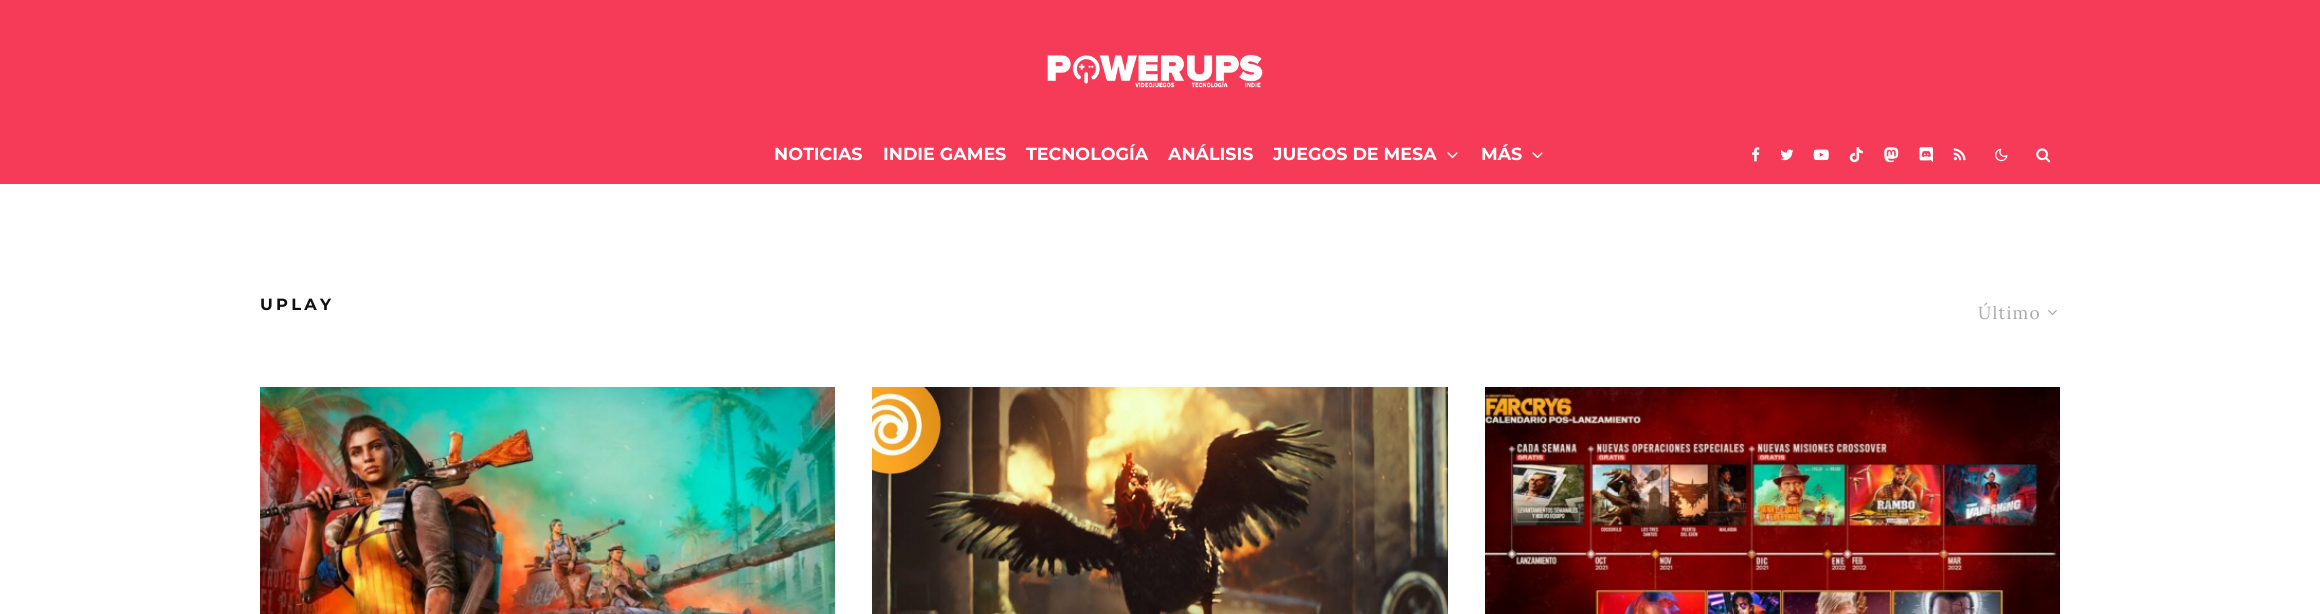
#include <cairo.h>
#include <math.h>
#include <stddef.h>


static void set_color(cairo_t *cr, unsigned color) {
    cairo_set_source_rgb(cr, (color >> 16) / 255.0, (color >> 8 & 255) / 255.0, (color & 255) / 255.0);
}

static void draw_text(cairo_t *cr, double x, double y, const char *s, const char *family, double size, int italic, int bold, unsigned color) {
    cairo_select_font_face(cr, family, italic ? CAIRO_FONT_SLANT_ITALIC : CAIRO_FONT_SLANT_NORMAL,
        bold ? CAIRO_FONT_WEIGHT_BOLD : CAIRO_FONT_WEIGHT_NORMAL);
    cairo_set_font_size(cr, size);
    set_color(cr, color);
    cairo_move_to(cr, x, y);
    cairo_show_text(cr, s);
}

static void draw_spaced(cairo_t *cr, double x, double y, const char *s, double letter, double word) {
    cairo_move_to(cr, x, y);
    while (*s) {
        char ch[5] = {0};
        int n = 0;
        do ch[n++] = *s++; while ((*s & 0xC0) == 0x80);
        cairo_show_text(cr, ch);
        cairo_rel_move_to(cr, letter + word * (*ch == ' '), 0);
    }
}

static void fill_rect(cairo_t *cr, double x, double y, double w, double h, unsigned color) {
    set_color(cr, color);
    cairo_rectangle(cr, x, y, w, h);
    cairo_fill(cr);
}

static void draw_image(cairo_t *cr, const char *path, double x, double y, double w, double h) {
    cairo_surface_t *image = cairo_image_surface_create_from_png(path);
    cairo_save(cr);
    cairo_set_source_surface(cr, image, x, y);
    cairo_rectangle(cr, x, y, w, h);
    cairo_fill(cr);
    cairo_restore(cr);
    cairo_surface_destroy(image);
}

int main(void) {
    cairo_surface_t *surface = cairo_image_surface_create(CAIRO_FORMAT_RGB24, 2320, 614);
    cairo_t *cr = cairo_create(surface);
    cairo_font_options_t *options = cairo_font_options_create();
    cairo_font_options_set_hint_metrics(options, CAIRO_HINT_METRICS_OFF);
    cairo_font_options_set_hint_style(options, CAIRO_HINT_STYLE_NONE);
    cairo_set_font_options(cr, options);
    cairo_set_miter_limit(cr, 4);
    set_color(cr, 0xFFFFFF);
    cairo_paint(cr);
    fill_rect(cr, 0, 0, 2320, 184, 0xF53B57);
    draw_image(cr, "assets/img1.png", 1047, 54, 216, 34);
    draw_text(cr, 774, 160, "NOTICIAS", "Montserrat", 17.5, 0, 1, 0xFFFFFF);
    draw_text(cr, 883, 160, "INDIE GAMES", "Montserrat", 17.5, 0, 1, 0xFFFFFF);
    draw_text(cr, 1026, 160, "TECNOLOGÍA", "Montserrat", 17.5, 0, 1, 0xFFFFFF);
    draw_text(cr, 1168, 160, "ANÁLISIS", "Montserrat", 17.5, 0, 1, 0xFFFFFF);
    draw_text(cr, 1273, 160, "JUEGOS DE MESA", "Montserrat", 17.5, 0, 1, 0xFFFFFF);
    draw_image(cr, "assets/img2.png", 1447, 152, 11, 7);
    draw_text(cr, 1481, 160, "MÁS", "Montserrat", 17.5, 0, 1, 0xFFFFFF);
    draw_image(cr, "assets/img2.png", 1532, 152, 11, 7);
    draw_image(cr, "assets/img3.png", 1752, 147, 8, 15);
    draw_image(cr, "assets/img4.png", 1780, 149, 14, 12);
    draw_image(cr, "assets/img5.png", 1813, 149, 16, 12);
    draw_image(cr, "assets/img6.png", 1849, 147, 14, 16);
    draw_image(cr, "assets/img7.png", 1884, 147, 15, 16);
    draw_image(cr, "assets/img8.png", 1919, 147, 14, 15);
    draw_image(cr, "assets/img9.png", 1953, 148, 13, 13);
    draw_image(cr, "assets/img10.png", 1995, 148, 13, 14);
    draw_image(cr, "assets/img11.png", 2036, 148, 15, 15);
    cairo_set_font_size(cr, 16.25);
    set_color(cr, 0x111111);
    draw_spaced(cr, 260, 310, "UPLAY", 3.25, 0);
    cairo_select_font_face(cr, "Lora", CAIRO_FONT_SLANT_NORMAL, CAIRO_FONT_WEIGHT_NORMAL);
    cairo_set_font_size(cr, 17.5);
    set_color(cr, 0xAAAAAA);
    draw_spaced(cr, 1978, 319, "Último", 1.25, 0);
    draw_image(cr, "assets/img12.png", 2048, 310, 9, 5);
    draw_image(cr, "assets/img13.png", 260, 387, 575, 227);
    draw_image(cr, "assets/img14.png", 872, 387, 576, 227);
    draw_image(cr, "assets/img15.png", 1485, 387, 575, 227);
    cairo_surface_write_to_png(surface, "output.png");
    cairo_font_options_destroy(options);
    cairo_destroy(cr);
    cairo_surface_destroy(surface);
    return 0;
}
